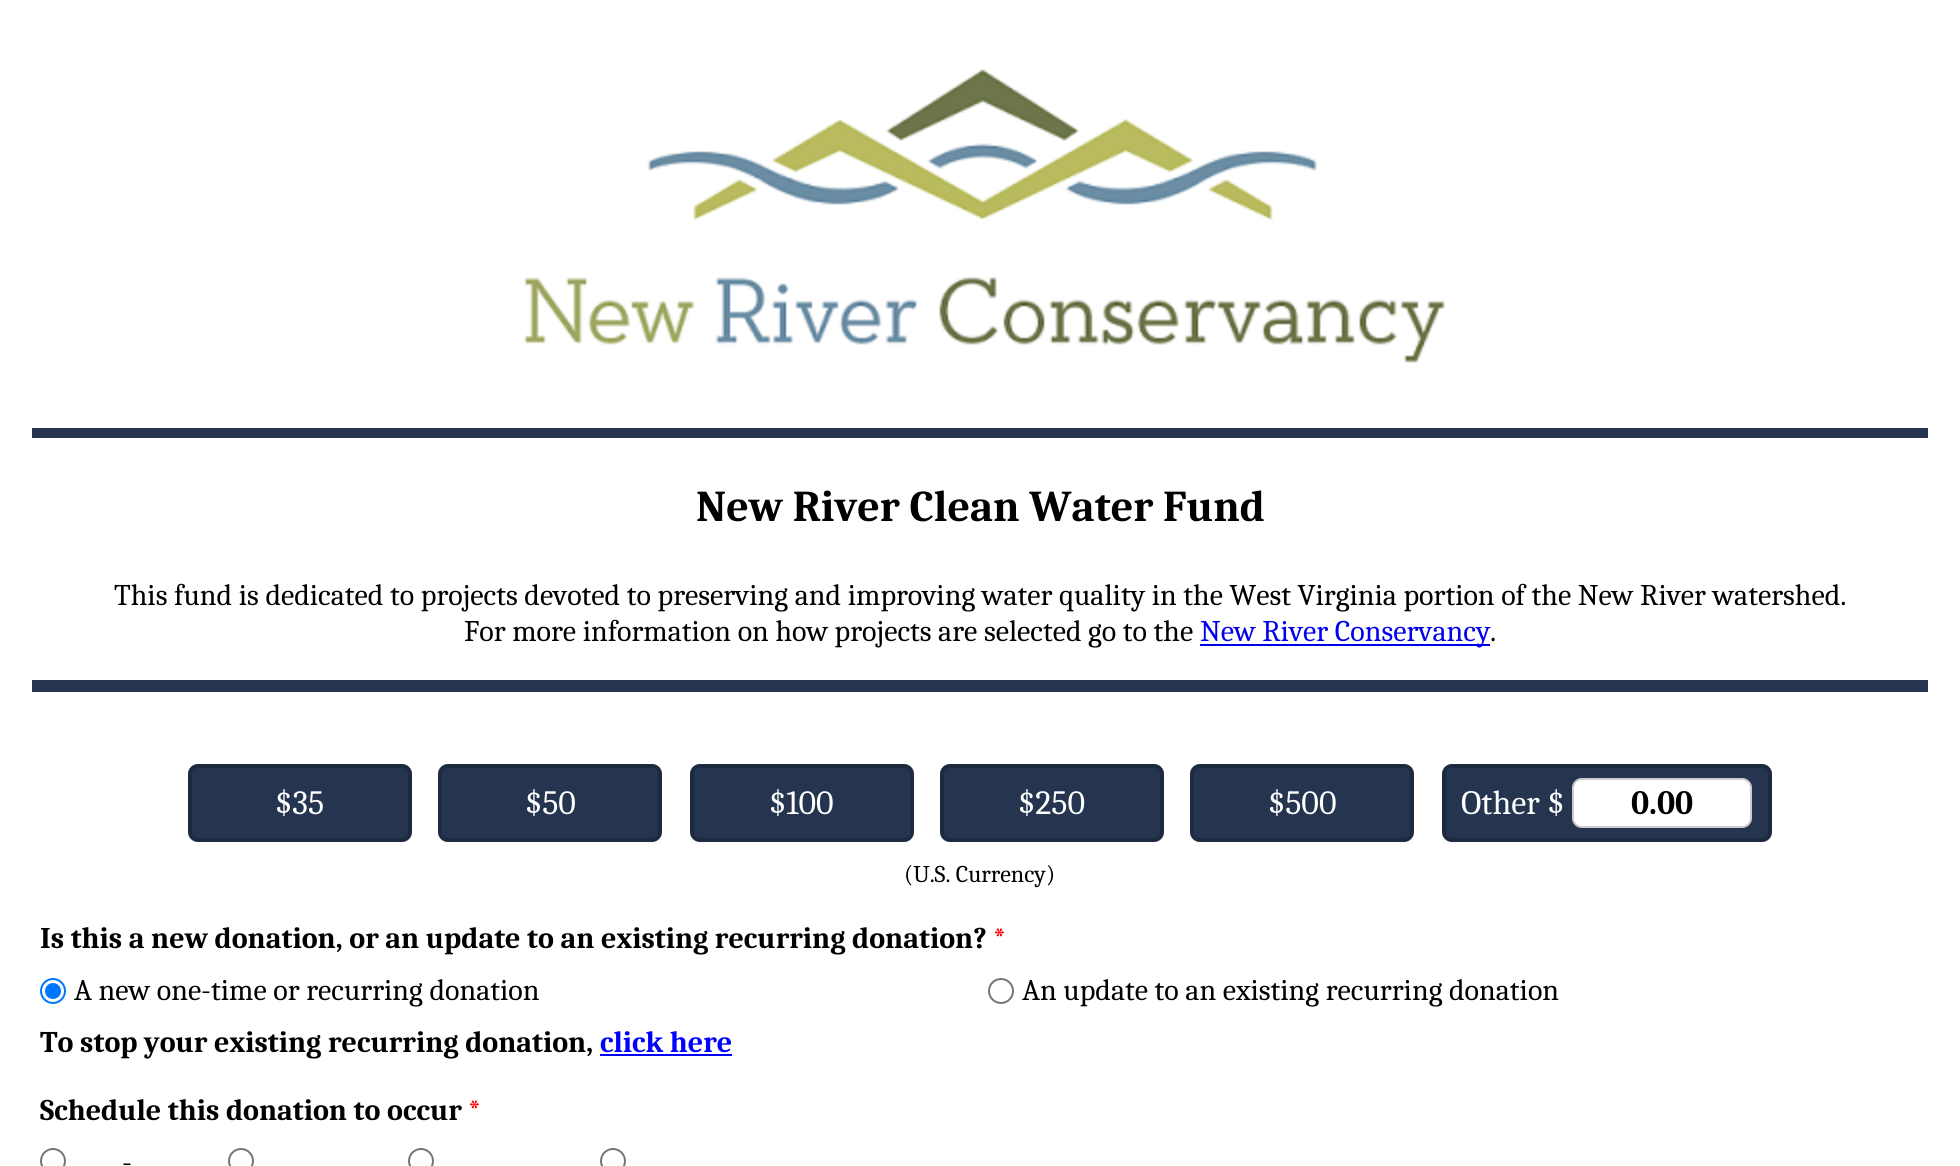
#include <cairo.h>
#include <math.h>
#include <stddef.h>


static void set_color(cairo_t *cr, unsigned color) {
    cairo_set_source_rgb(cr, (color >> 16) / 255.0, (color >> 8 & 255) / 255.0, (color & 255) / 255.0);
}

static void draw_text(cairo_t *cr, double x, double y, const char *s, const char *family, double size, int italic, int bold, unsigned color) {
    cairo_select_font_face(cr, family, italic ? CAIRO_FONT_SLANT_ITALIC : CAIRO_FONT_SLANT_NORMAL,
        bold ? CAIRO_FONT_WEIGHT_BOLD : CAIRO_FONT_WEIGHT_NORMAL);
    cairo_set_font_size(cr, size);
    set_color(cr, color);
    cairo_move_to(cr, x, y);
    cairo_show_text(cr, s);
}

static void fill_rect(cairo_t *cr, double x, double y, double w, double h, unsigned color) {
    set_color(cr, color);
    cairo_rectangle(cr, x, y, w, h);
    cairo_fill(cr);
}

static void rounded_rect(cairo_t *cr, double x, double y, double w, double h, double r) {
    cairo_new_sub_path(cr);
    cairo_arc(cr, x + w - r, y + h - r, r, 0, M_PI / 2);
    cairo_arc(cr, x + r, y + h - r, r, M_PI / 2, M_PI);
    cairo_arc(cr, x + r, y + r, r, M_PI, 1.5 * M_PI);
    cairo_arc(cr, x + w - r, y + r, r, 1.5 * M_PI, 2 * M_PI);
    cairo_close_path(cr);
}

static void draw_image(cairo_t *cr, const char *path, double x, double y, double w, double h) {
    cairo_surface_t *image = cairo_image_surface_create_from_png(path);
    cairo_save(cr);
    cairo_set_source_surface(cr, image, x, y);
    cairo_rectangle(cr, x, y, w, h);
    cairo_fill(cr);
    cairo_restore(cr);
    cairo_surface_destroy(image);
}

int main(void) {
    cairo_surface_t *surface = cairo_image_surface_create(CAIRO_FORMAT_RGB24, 1960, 1166);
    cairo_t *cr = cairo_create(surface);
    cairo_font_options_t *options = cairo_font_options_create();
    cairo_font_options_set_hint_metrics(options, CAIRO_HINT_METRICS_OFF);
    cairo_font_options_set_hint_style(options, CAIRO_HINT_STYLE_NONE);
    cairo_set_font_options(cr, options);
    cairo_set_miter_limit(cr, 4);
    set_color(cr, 0xFFFFFF);
    cairo_paint(cr);
    draw_image(cr, "assets/img1.png", 523, 69, 922, 294);
    fill_rect(cr, 32, 428, 1896, 10, 0x253550);
    draw_text(cr, 696, 521, "New River Clean Water Fund", "Caladea", 44, 0, 1, 0x000000);
    draw_text(cr, 114, 605, "This fund is dedicated to projects devoted to preserving and improving water quality in the West Virginia portion of the New River watershed.", "Caladea", 30, 0, 0, 0x000000);
    draw_text(cr, 464, 641, "For more information on how projects are selected go to the", "Caladea", 30, 0, 0, 0x000000);
    fill_rect(cr, 1200, 644, 290, 2, 0x0000EE);
    draw_text(cr, 1200, 641, "New River Conservancy", "Caladea", 30, 0, 0, 0x0000EE);
    draw_text(cr, 1490, 641, ".", "Caladea", 30, 0, 0, 0x000000);
    fill_rect(cr, 32, 680, 1896, 12, 0x253550);
    rounded_rect(cr, 188, 764, 224, 78, 10);
    cairo_fill(cr);
    rounded_rect(cr, 190, 766, 220, 74, 8);
    cairo_set_source_rgba(cr, 0, 0, 0, 0.2);
    cairo_set_line_width(cr, 4);
    cairo_stroke(cr);
    draw_text(cr, 275, 814, "$35", "Caladea", 34, 0, 0, 0xFFFFFF);
    set_color(cr, 0x253550);
    rounded_rect(cr, 438, 764, 224, 78, 10);
    cairo_fill(cr);
    rounded_rect(cr, 440, 766, 220, 74, 8);
    cairo_set_source_rgba(cr, 0, 0, 0, 0.2);
    cairo_stroke(cr);
    draw_text(cr, 525, 814, "$50", "Caladea", 34, 0, 0, 0xFFFFFF);
    set_color(cr, 0x253550);
    rounded_rect(cr, 690, 764, 224, 78, 10);
    cairo_fill(cr);
    rounded_rect(cr, 692, 766, 220, 74, 8);
    cairo_set_source_rgba(cr, 0, 0, 0, 0.2);
    cairo_stroke(cr);
    draw_text(cr, 769, 814, "$100", "Caladea", 34, 0, 0, 0xFFFFFF);
    set_color(cr, 0x253550);
    rounded_rect(cr, 940, 764, 224, 78, 10);
    cairo_fill(cr);
    rounded_rect(cr, 942, 766, 220, 74, 8);
    cairo_set_source_rgba(cr, 0, 0, 0, 0.2);
    cairo_stroke(cr);
    draw_text(cr, 1018, 814, "$250", "Caladea", 34, 0, 0, 0xFFFFFF);
    set_color(cr, 0x253550);
    rounded_rect(cr, 1190, 764, 224, 78, 10);
    cairo_fill(cr);
    rounded_rect(cr, 1192, 766, 220, 74, 8);
    cairo_set_source_rgba(cr, 0, 0, 0, 0.2);
    cairo_stroke(cr);
    draw_text(cr, 1268, 814, "$500", "Caladea", 34, 0, 0, 0xFFFFFF);
    set_color(cr, 0x253550);
    rounded_rect(cr, 1442, 764, 330, 78, 10);
    cairo_fill(cr);
    rounded_rect(cr, 1444, 766, 326, 74, 8);
    cairo_set_source_rgba(cr, 0, 0, 0, 0.2);
    cairo_stroke(cr);
    draw_text(cr, 1461, 814, "Other $", "Caladea", 34, 0, 0, 0xFFFFFF);
    rounded_rect(cr, 1572, 778, 180, 50, 10);
    cairo_fill(cr);
    rounded_rect(cr, 1573, 779, 178, 48, 9);
    cairo_set_source_rgba(cr, 0, 0, 0, 0.2);
    cairo_set_line_width(cr, 2);
    cairo_stroke(cr);
    draw_text(cr, 1631, 814, "0.00", "Caladea", 34, 0, 1, 0x000000);
    draw_text(cr, 904, 882, "(U.S. Currency)", "Caladea", 24, 0, 0, 0x000000);
    draw_text(cr, 40, 948, "Is this a new donation, or an update to an existing recurring donation?", "Caladea", 30, 0, 1, 0x000000);
    draw_text(cr, 993, 948, "*", "Caladea", 30, 0, 1, 0xFF0000);
    cairo_new_path(cr);
    cairo_arc(cr, 53, 991, 12, 0, 2 * M_PI);
    set_color(cr, 0x0075FF);
    cairo_stroke(cr);
    cairo_arc(cr, 53, 991, 8, 0, 2 * M_PI);
    cairo_fill(cr);
    draw_text(cr, 74, 1000, "A new one-time or recurring donation", "Caladea", 30, 0, 0, 0x000000);
    cairo_new_path(cr);
    cairo_arc(cr, 1001, 991, 12, 0, 2 * M_PI);
    set_color(cr, 0x767676);
    cairo_stroke(cr);
    draw_text(cr, 1022, 1000, "An update to an existing recurring donation", "Caladea", 30, 0, 0, 0x000000);
    draw_text(cr, 40, 1052, "To stop your existing recurring donation,", "Caladea", 30, 0, 1, 0x000000);
    draw_text(cr, 600, 1052, "click here", "Caladea", 30, 0, 1, 0x0000FF);
    fill_rect(cr, 600, 1054, 132, 2, 0x0000FF);
    draw_text(cr, 40, 1120, "Schedule this donation to occur", "Caladea", 30, 0, 1, 0x000000);
    draw_text(cr, 468, 1120, "*", "Caladea", 30, 0, 1, 0xFF0000);
    cairo_new_path(cr);
    cairo_arc(cr, 53, 1161, 12, 0, 2 * M_PI);
    set_color(cr, 0x767676);
    cairo_stroke(cr);
    draw_text(cr, 122, 1172, "-", "Caladea", 30, 0, 0, 0x000000);
    cairo_new_path(cr);
    cairo_arc(cr, 241, 1161, 12, 0, 2 * M_PI);
    set_color(cr, 0x767676);
    cairo_stroke(cr);
    cairo_arc(cr, 421, 1161, 12, 0, 2 * M_PI);
    cairo_stroke(cr);
    cairo_arc(cr, 613, 1161, 12, 0, 2 * M_PI);
    cairo_stroke(cr);
    cairo_surface_write_to_png(surface, "output.png");
    cairo_font_options_destroy(options);
    cairo_destroy(cr);
    cairo_surface_destroy(surface);
    return 0;
}
